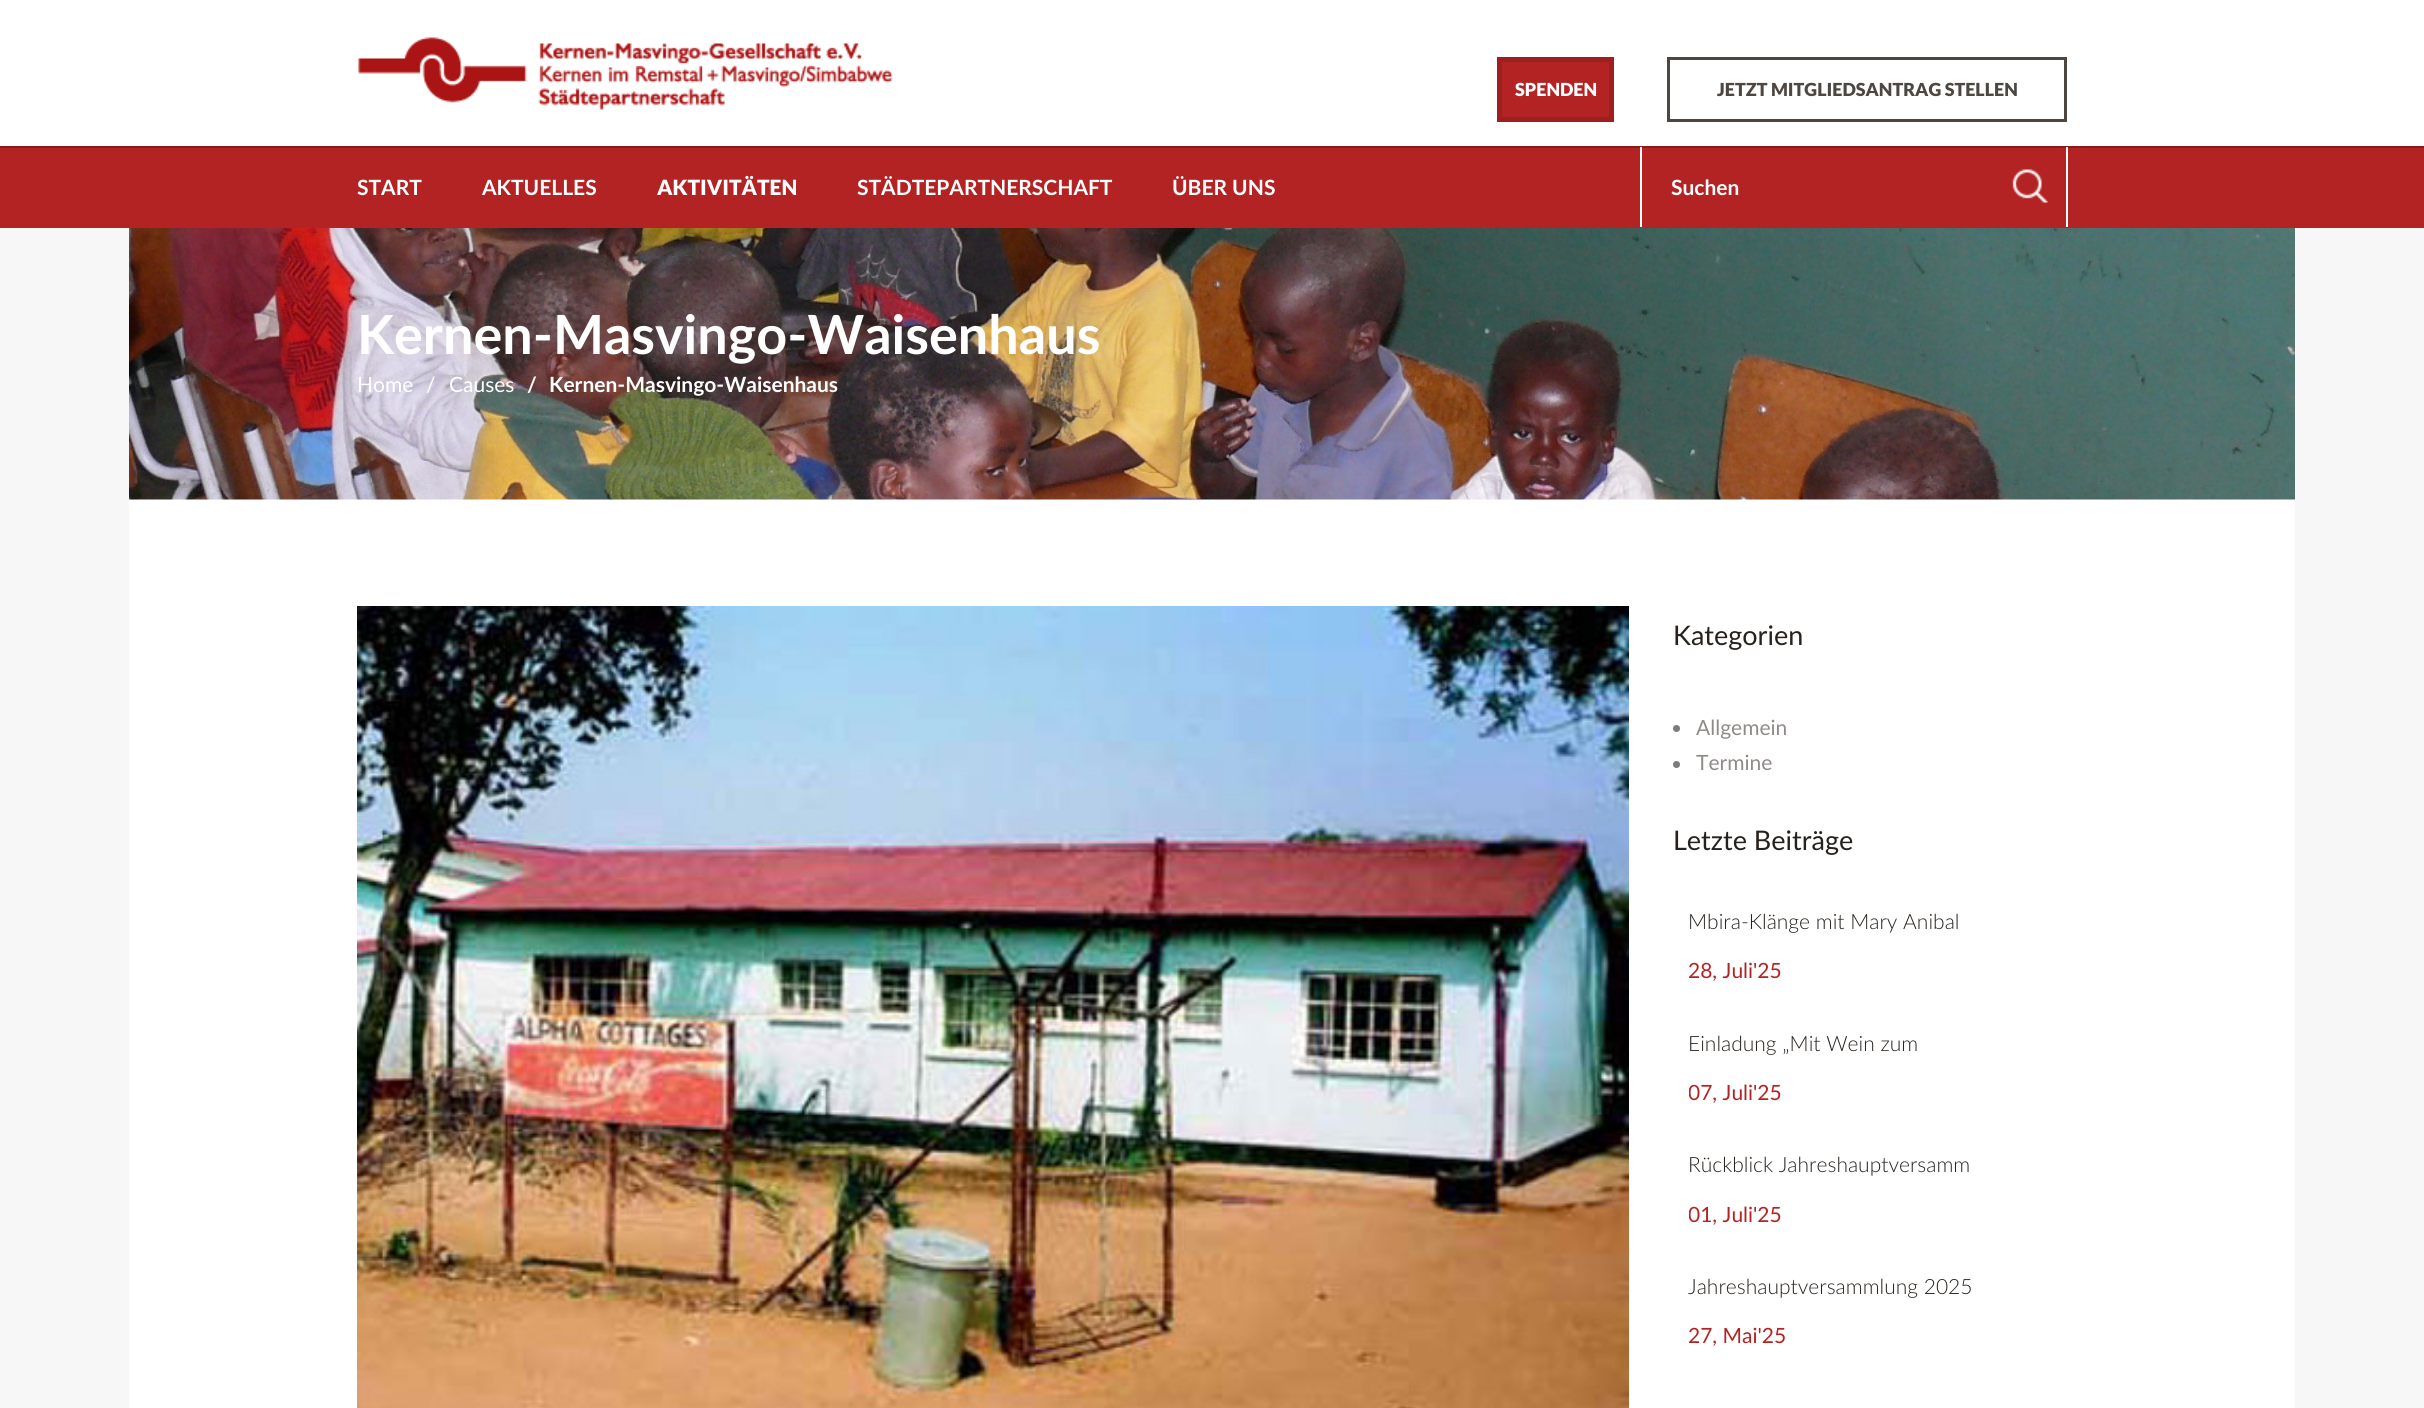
#include <cairo.h>
#include <math.h>
#include <stddef.h>


static void set_color(cairo_t *cr, unsigned color) {
    cairo_set_source_rgb(cr, (color >> 16) / 255.0, (color >> 8 & 255) / 255.0, (color & 255) / 255.0);
}

static void draw_text(cairo_t *cr, double x, double y, const char *s, const char *family, double size, int italic, int bold, unsigned color) {
    cairo_select_font_face(cr, family, italic ? CAIRO_FONT_SLANT_ITALIC : CAIRO_FONT_SLANT_NORMAL,
        bold ? CAIRO_FONT_WEIGHT_BOLD : CAIRO_FONT_WEIGHT_NORMAL);
    cairo_set_font_size(cr, size);
    set_color(cr, color);
    cairo_move_to(cr, x, y);
    cairo_show_text(cr, s);
}

static void fill_rect(cairo_t *cr, double x, double y, double w, double h, unsigned color) {
    set_color(cr, color);
    cairo_rectangle(cr, x, y, w, h);
    cairo_fill(cr);
}

static void draw_image(cairo_t *cr, const char *path, double x, double y, double w, double h) {
    cairo_surface_t *image = cairo_image_surface_create_from_png(path);
    cairo_save(cr);
    cairo_set_source_surface(cr, image, x, y);
    cairo_rectangle(cr, x, y, w, h);
    cairo_fill(cr);
    cairo_restore(cr);
    cairo_surface_destroy(image);
}

int main(void) {
    cairo_surface_t *surface = cairo_image_surface_create(CAIRO_FORMAT_RGB24, 2424, 1408);
    cairo_t *cr = cairo_create(surface);
    cairo_font_options_t *options = cairo_font_options_create();
    cairo_font_options_set_hint_metrics(options, CAIRO_HINT_METRICS_OFF);
    cairo_font_options_set_hint_style(options, CAIRO_HINT_STYLE_NONE);
    cairo_set_font_options(cr, options);
    cairo_set_miter_limit(cr, 4);
    set_color(cr, 0xF7F7F7);
    cairo_paint(cr);
    fill_rect(cr, 129, 499, 2166, 909, 0xFFFFFF);
    fill_rect(cr, 0, 0, 2424, 146, 0xFFFFFF);
    draw_image(cr, "assets/img1.png", 358, 37, 535, 73);
    set_color(cr, 0xB42323);
    cairo_rectangle(cr, 1499.5, 59.5, 112, 60);
    cairo_fill_preserve(cr);
    set_color(cr, 0x9F1F1F);
    cairo_set_line_width(cr, 5);
    cairo_stroke(cr);
    draw_text(cr, 1515, 96, "SPENDEN", "Lato Black", 18, 0, 0, 0xFFFFFF);
    cairo_rectangle(cr, 1668.5, 58.5, 397, 62);
    set_color(cr, 0x4D4641);
    cairo_set_line_width(cr, 3);
    cairo_stroke(cr);
    draw_text(cr, 1717, 96, "JETZT MITGLIEDSANTRAG STELLEN", "Lato Black", 18, 0, 0, 0x4D4641);
    fill_rect(cr, 0, 148, 2424, 80, 0xB42323);
    fill_rect(cr, 0, 146, 2424, 2, 0x891B1B);
    draw_text(cr, 357, 195, "START", "Lato", 21, 0, 1, 0xFFFFFF);
    draw_text(cr, 482, 195, "AKTUELLES", "Lato", 21, 0, 1, 0xFFFFFF);
    draw_text(cr, 657, 195, "AKTIVITÄTEN", "Lato Black", 21, 0, 0, 0xFFFFFF);
    draw_text(cr, 857, 195, "STÄDTEPARTNERSCHAFT", "Lato", 21, 0, 1, 0xFFFFFF);
    draw_text(cr, 1172, 195, "ÜBER UNS", "Lato", 21, 0, 1, 0xFFFFFF);
    fill_rect(cr, 2066, 147, 2, 80, 0xFFFFFF);
    fill_rect(cr, 1640, 147, 2, 80, 0xFFFFFF);
    draw_text(cr, 1671, 195, "Suchen", "Lato", 21, 0, 1, 0xFFFFFF);
    draw_image(cr, "assets/img2.png", 2012, 169, 36, 34);
    draw_image(cr, "assets/img3.png", 129, 228, 2166, 272);
    draw_text(cr, 357, 354, "Kernen-Masvingo-Waisenhaus", "Lato", 54, 0, 1, 0xFFFFFF);
    draw_text(cr, 357, 392, "Home", "Lato", 21, 0, 0, 0xFFFFFF);
    draw_text(cr, 426, 392, "/", "Lato", 21, 0, 0, 0xFFFFFF);
    draw_text(cr, 449, 392, "Causes", "Lato", 21, 0, 0, 0xFFFFFF);
    draw_text(cr, 527, 392, "/", "Lato", 21, 0, 1, 0xFFFFFF);
    draw_text(cr, 549, 392, "Kernen-Masvingo-Waisenhaus", "Lato", 21, 0, 1, 0xFFFFFF);
    draw_image(cr, "assets/img4.png", 357, 606, 1272, 802);
    draw_text(cr, 1673, 645, "Kategorien", "Lato", 27, 0, 0, 0x26211D);
    set_color(cr, 0x7C7C7C);
    cairo_new_path(cr);
    cairo_arc(cr, 1676.5, 728.5, 3.5, 0, 2 * M_PI);
    cairo_fill(cr);
    draw_text(cr, 1696, 735, "Allgemein", "Lato", 21, 0, 0, 0x8F8B89);
    set_color(cr, 0x7C7C7C);
    cairo_new_path(cr);
    cairo_arc(cr, 1676.5, 764.5, 3.5, 0, 2 * M_PI);
    cairo_fill(cr);
    draw_text(cr, 1696, 770, "Termine", "Lato", 21, 0, 0, 0x8F8B89);
    draw_text(cr, 1673, 850, "Letzte Beiträge", "Lato", 27, 0, 0, 0x26211D);
    draw_text(cr, 1688, 929, "Mbira-Klänge mit Mary Anibal", "Lato Light", 21, 0, 0, 0x26211D);
    draw_text(cr, 1688, 978, "28, Juli'25", "Lato", 21, 0, 0, 0xB42323);
    draw_text(cr, 1688, 1051, "Einladung „Mit Wein zum", "Lato Light", 21, 0, 0, 0x26211D);
    cairo_save(cr);
    cairo_rectangle(cr, 1689, 1025, 378, 85);
    cairo_clip(cr);
    draw_text(cr, 1688, 1100, "07, Juli'25", "Lato", 21, 0, 0, 0xB42323);
    cairo_restore(cr);
    draw_text(cr, 1688, 1172, "Rückblick Jahreshauptversamm", "Lato Light", 21, 0, 0, 0x26211D);
    cairo_save(cr);
    cairo_rectangle(cr, 1689, 1148, 378, 84);
    cairo_clip(cr);
    draw_text(cr, 1688, 1222, "01, Juli'25", "Lato", 21, 0, 0, 0xB42323);
    cairo_restore(cr);
    draw_text(cr, 1688, 1294, "Jahreshauptversammlung 2025", "Lato Light", 21, 0, 0, 0x26211D);
    draw_text(cr, 1688, 1343, "27, Mai'25", "Lato", 21, 0, 0, 0xB42323);
    cairo_surface_write_to_png(surface, "output.png");
    cairo_font_options_destroy(options);
    cairo_destroy(cr);
    cairo_surface_destroy(surface);
    return 0;
}
